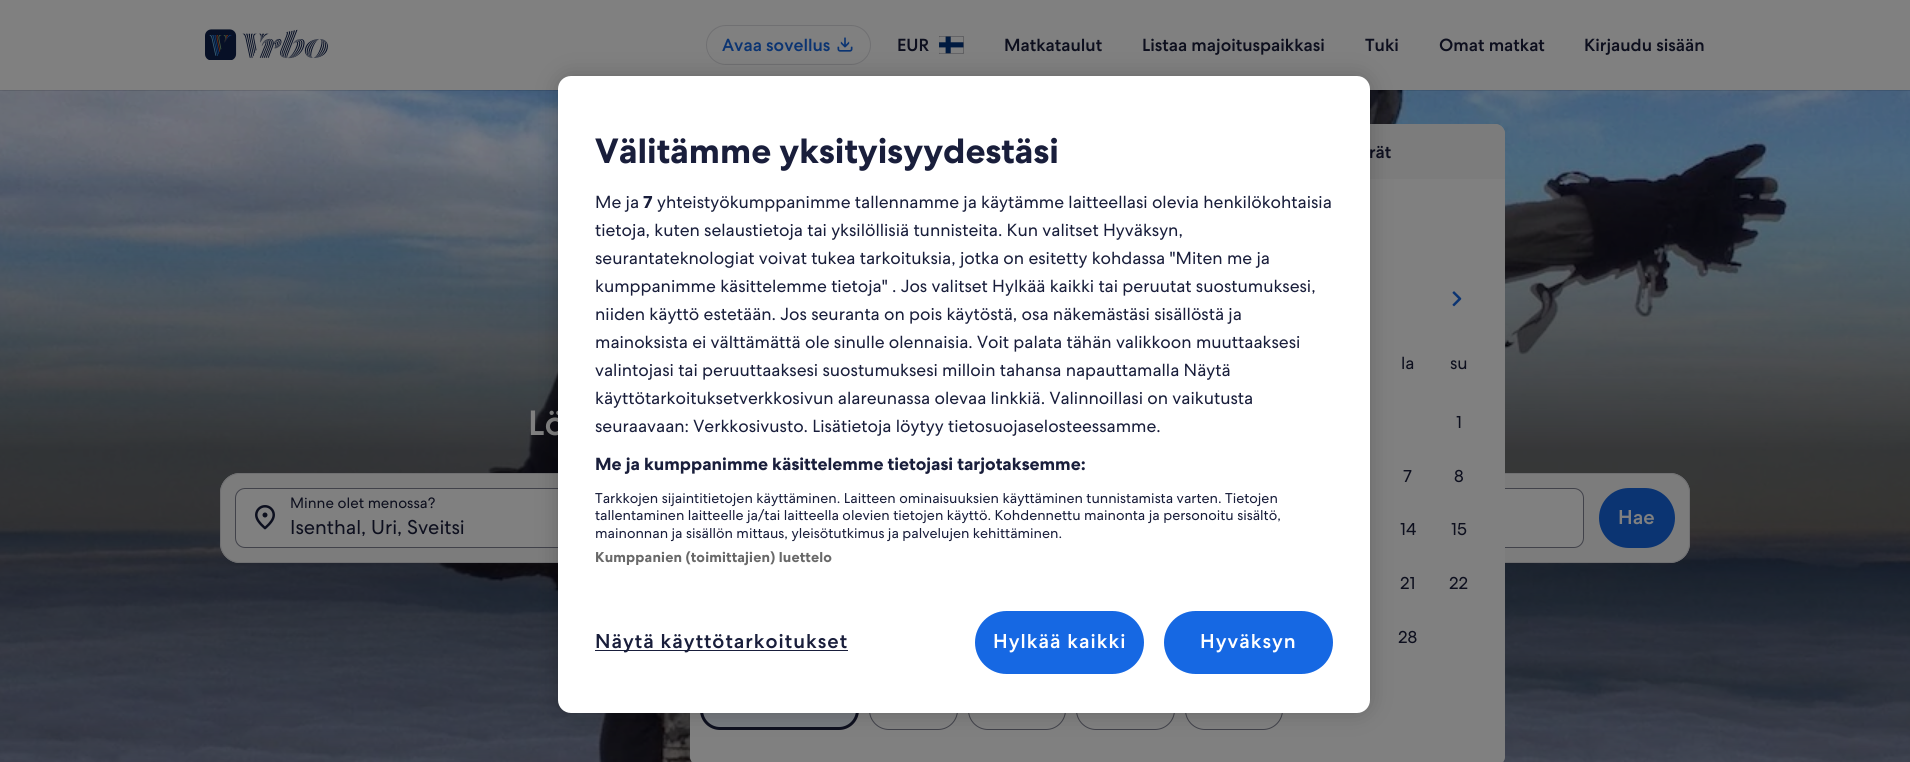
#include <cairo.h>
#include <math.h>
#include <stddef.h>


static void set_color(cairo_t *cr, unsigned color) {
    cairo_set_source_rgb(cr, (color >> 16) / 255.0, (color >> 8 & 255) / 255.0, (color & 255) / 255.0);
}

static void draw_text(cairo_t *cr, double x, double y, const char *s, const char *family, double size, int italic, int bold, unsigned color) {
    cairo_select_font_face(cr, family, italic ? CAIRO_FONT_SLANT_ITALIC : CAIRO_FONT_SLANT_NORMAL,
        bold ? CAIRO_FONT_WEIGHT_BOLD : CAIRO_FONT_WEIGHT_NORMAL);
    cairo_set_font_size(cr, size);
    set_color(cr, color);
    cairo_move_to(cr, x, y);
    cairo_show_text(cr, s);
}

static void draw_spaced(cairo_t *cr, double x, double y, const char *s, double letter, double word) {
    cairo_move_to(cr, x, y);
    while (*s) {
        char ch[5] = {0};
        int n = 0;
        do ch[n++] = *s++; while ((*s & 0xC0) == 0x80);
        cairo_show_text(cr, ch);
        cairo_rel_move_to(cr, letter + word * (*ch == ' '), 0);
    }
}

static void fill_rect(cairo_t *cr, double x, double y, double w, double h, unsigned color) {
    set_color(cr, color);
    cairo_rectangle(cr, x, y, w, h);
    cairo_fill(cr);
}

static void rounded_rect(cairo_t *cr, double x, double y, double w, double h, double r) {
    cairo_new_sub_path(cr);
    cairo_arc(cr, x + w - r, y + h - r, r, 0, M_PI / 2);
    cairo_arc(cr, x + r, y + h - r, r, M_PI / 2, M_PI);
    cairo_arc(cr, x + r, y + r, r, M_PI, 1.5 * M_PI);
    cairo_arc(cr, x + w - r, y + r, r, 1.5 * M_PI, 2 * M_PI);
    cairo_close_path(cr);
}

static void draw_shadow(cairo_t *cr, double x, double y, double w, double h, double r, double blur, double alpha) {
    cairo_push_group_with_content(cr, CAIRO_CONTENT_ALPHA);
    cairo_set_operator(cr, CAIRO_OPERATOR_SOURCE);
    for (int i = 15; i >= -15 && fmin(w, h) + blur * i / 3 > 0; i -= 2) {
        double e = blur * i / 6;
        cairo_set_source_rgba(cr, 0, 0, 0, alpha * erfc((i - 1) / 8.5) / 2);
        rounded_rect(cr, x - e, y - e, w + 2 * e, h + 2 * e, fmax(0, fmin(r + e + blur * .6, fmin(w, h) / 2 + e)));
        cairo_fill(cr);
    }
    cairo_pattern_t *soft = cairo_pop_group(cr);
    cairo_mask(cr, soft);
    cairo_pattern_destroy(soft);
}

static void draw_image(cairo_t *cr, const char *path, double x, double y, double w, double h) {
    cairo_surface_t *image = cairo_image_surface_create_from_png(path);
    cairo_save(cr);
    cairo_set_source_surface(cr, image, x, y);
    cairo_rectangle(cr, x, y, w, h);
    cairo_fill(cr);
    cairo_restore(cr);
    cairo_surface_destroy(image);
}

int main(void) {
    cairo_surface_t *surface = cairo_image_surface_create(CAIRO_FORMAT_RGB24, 1910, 762);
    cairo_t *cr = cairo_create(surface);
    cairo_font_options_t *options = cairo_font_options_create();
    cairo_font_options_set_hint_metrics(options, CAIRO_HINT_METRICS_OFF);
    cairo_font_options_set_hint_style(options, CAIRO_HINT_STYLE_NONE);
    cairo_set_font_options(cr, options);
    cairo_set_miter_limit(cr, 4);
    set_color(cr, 0x808080);
    cairo_paint(cr);
    draw_image(cr, "assets/img4.png", 0, 90, 1910, 672);
    cairo_set_source_rgba(cr, 0.024, 0.027, 0.055, 0.12);
    cairo_rectangle(cr, 0, 90, 1910, 1);
    cairo_fill(cr);
    draw_image(cr, "assets/img1.png", 205, 29, 123, 31);
    rounded_rect(cr, 706.5, 25.5, 164, 39, 19.5);
    set_color(cr, 0x707072);
    cairo_set_line_width(cr, 1);
    cairo_stroke(cr);
    draw_text(cr, 722, 51, "Avaa sovellus", "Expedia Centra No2 Medium", 17.5, 0, 0, 0x0B3472);
    draw_image(cr, "assets/img2.png", 837, 37, 16, 15);
    draw_text(cr, 897, 51, "EUR", "Expedia Centra No2 Medium", 17.5, 0, 0, 0x0D0F1E);
    draw_image(cr, "assets/img3.png", 939, 36, 25, 18);
    draw_text(cr, 1004, 51, "Matkataulut", "Expedia Centra No2 Medium", 17.5, 0, 0, 0x0D0F1E);
    draw_text(cr, 1142, 51, "Listaa majoituspaikkasi", "Expedia Centra No2 Medium", 17.5, 0, 0, 0x0D0F1E);
    draw_text(cr, 1365, 51, "Tuki", "Expedia Centra No2 Medium", 17.5, 0, 0, 0x0D0F1E);
    draw_text(cr, 1439, 51, "Omat matkat", "Expedia Centra No2 Medium", 17.5, 0, 0, 0x0D0F1E);
    draw_text(cr, 1584, 51, "Kirjaudu sisään", "Expedia Centra No2 Medium", 17.5, 0, 0, 0x0D0F1E);
    set_color(cr, 0x7C7C7C);
    rounded_rect(cr, 220, 473, 1470, 90, 20);
    cairo_fill(cr);
    set_color(cr, 0x808080);
    rounded_rect(cr, 1144.5, 488.5, 439, 59, 9.5);
    cairo_fill_preserve(cr);
    set_color(cr, 0x41424A);
    cairo_stroke(cr);
    set_color(cr, 0x808080);
    rounded_rect(cr, 235.5, 488.5, 439, 59, 9.5);
    cairo_fill_preserve(cr);
    set_color(cr, 0x41424A);
    cairo_stroke(cr);
    draw_image(cr, "assets/img6.png", 255, 505, 20, 25);
    set_color(cr, 0x0B3472);
    rounded_rect(cr, 1599, 488, 76, 60, 30);
    cairo_fill(cr);
    rounded_rect(cr, 220.5, 473.5, 1469, 89, 19.5);
    set_color(cr, 0x707072);
    cairo_stroke(cr);
    set_color(cr, 0x808080);
    rounded_rect(cr, 690, 124, 815, 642, 10);
    cairo_fill(cr);
    set_color(cr, 0x7C7C7C);
    cairo_new_path(cr);
    cairo_move_to(cr, 700, 124);
    cairo_line_to(cr, 1495, 124);
    cairo_curve_to(cr, 1500.5, 124, 1505, 128.5, 1505, 134);
    cairo_line_to(cr, 1505, 179);
    cairo_line_to(cr, 690, 179);
    cairo_line_to(cr, 690, 134);
    cairo_curve_to(cr, 690, 128.5, 694.5, 124, 700, 124);
    cairo_close_path(cr);
    cairo_fill(cr);
    draw_text(cr, 1369, 158, "rät", "Expedia Centra No2 Medium", 17.5, 0, 0, 0x0D0F1E);
    draw_image(cr, "assets/img5.png", 1452, 291, 10, 16);
    draw_text(cr, 1401, 369, "la", "Expedia Centra No2", 17.5, 0, 0, 0x0D0F1E);
    draw_text(cr, 1450, 369, "su", "Expedia Centra No2", 17.5, 0, 0, 0x0D0F1E);
    draw_text(cr, 1456, 428, "1", "Expedia Centra No2", 17.5, 0, 0, 0x0D0F1E);
    draw_text(cr, 1403, 482, "7", "Expedia Centra No2", 17.5, 0, 0, 0x0D0F1E);
    draw_text(cr, 1454, 482, "8", "Expedia Centra No2", 17.5, 0, 0, 0x0D0F1E);
    draw_text(cr, 1400, 535, "14", "Expedia Centra No2", 17.5, 0, 0, 0x0D0F1E);
    draw_text(cr, 1451, 535, "15", "Expedia Centra No2", 17.5, 0, 0, 0x0D0F1E);
    draw_text(cr, 1400, 589, "21", "Expedia Centra No2", 17.5, 0, 0, 0x0D0F1E);
    draw_text(cr, 1449, 589, "22", "Expedia Centra No2", 17.5, 0, 0, 0x0D0F1E);
    draw_text(cr, 1398, 643, "28", "Expedia Centra No2", 17.5, 0, 0, 0x0D0F1E);
    set_color(cr, 0x767A7F);
    rounded_rect(cr, 701.5, 691.5, 156, 37, 18.5);
    cairo_fill_preserve(cr);
    set_color(cr, 0x0D0F1E);
    cairo_set_line_width(cr, 3);
    cairo_stroke(cr);
    rounded_rect(cr, 869.5, 690.5, 88, 39, 19.5);
    set_color(cr, 0x41424A);
    cairo_set_line_width(cr, 1);
    cairo_stroke(cr);
    rounded_rect(cr, 968.5, 690.5, 97, 39, 19.5);
    cairo_stroke(cr);
    rounded_rect(cr, 1076.5, 690.5, 98, 39, 19.5);
    cairo_stroke(cr);
    rounded_rect(cr, 1185.5, 690.5, 97, 39, 19.5);
    cairo_stroke(cr);
    set_color(cr, 0x808080);
    cairo_new_path(cr);
    cairo_move_to(cr, 690, 748);
    cairo_line_to(cr, 1505, 748);
    cairo_line_to(cr, 1505, 756);
    cairo_curve_to(cr, 1505, 761.5, 1500.5, 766, 1495, 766);
    cairo_line_to(cr, 700, 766);
    cairo_curve_to(cr, 694.5, 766, 690, 761.5, 690, 756);
    cairo_close_path(cr);
    cairo_fill(cr);
    draw_text(cr, 290, 508, "Minne olet menossa?", "Expedia Centra No2", 15, 0, 0, 0x0D0F1E);
    draw_text(cr, 290, 534, "Isenthal, Uri, Sveitsi", "Expedia Centra No2", 20, 0, 0, 0x0D0F1E);
    draw_text(cr, 1618, 524, "Hae", "Expedia Centra No2 Medium", 20, 0, 0, 0x808080);
    draw_text(cr, 528, 435, "Lö", "Expedia Centra No2 Medium", 35, 0, 0, 0x808080);
    set_color(cr, 0x000000);
    draw_shadow(cr, 558, 76, 812, 637, 13, 11, 0.2);
    set_color(cr, 0xFFFFFF);
    rounded_rect(cr, 558, 76, 812, 637, 13);
    cairo_fill(cr);
    draw_text(cr, 595, 163, "Välitämme yksityisyydestäsi", "Expedia Centra No2", 35, 0, 1, 0x191E3B);
    draw_text(cr, 595, 208, "Me ja", "Expedia Centra No2", 17.5, 0, 0, 0x191E3B);
    draw_text(cr, 643, 208, "7", "Expedia Centra No2", 17.5, 0, 1, 0x191E3B);
    draw_text(cr, 657, 208, "yhteistyökumppanimme tallennamme ja käytämme laitteellasi olevia henkilökohtaisia", "Expedia Centra No2", 17.5, 0, 0, 0x191E3B);
    draw_text(cr, 595, 236, "tietoja, kuten selaustietoja tai yksilöllisiä tunnisteita. Kun valitset Hyväksyn,", "Expedia Centra No2", 17.5, 0, 0, 0x191E3B);
    draw_text(cr, 595, 264, "seurantateknologiat voivat tukea tarkoituksia, jotka on esitetty kohdassa \"Miten me ja", "Expedia Centra No2", 17.5, 0, 0, 0x191E3B);
    draw_text(cr, 595, 292, "kumppanimme käsittelemme tietoja\" . Jos valitset Hylkää kaikki tai peruutat suostumuksesi,", "Expedia Centra No2", 17.5, 0, 0, 0x191E3B);
    draw_text(cr, 595, 320, "niiden käyttö estetään. Jos seuranta on pois käytöstä, osa näkemästäsi sisällöstä ja", "Expedia Centra No2", 17.5, 0, 0, 0x191E3B);
    draw_text(cr, 595, 348, "mainoksista ei välttämättä ole sinulle olennaisia. Voit palata tähän valikkoon muuttaaksesi", "Expedia Centra No2", 17.5, 0, 0, 0x191E3B);
    draw_text(cr, 595, 376, "valintojasi tai peruuttaaksesi suostumuksesi milloin tahansa napauttamalla Näytä", "Expedia Centra No2", 17.5, 0, 0, 0x191E3B);
    draw_text(cr, 595, 404, "käyttötarkoituksetverkkosivun alareunassa olevaa linkkiä. Valinnoillasi on vaikutusta", "Expedia Centra No2", 17.5, 0, 0, 0x191E3B);
    draw_text(cr, 595, 432, "seuraavaan: Verkkosivusto. Lisätietoja löytyy tietosuojaselosteessamme.", "Expedia Centra No2", 17.5, 0, 0, 0x191E3B);
    draw_text(cr, 595, 470, "Me ja kumppanimme käsittelemme tietojasi tarjotaksemme:", "Expedia Centra No2", 17.5, 0, 1, 0x191E3B);
    draw_text(cr, 595, 503, "Tarkkojen sijaintitietojen käyttäminen. Laitteen ominaisuuksien käyttäminen tunnistamista varten. Tietojen", "Expedia Centra No2", 14.25, 0, 0, 0x191E3B);
    draw_text(cr, 595, 520, "tallentaminen laitteelle ja/tai laitteella olevien tietojen käyttö. Kohdennettu mainonta ja personoitu sisältö,", "Expedia Centra No2", 14.25, 0, 0, 0x191E3B);
    draw_text(cr, 595, 538, "mainonnan ja sisällön mittaus, yleisötutkimus ja palvelujen kehittäminen.", "Expedia Centra No2", 14.25, 0, 0, 0x191E3B);
    cairo_select_font_face(cr, "Expedia Centra No2", CAIRO_FONT_SLANT_NORMAL, CAIRO_FONT_WEIGHT_BOLD);
    set_color(cr, 0x696969);
    draw_spaced(cr, 595, 562, "Kumppanien (toimittajien) luettelo", 0.15, 0);
    fill_rect(cr, 595, 650, 253, 1, 0x191E3B);
    cairo_select_font_face(cr, "Expedia Centra No2 Medium", CAIRO_FONT_SLANT_NORMAL, CAIRO_FONT_WEIGHT_NORMAL);
    cairo_set_font_size(cr, 20);
    draw_spaced(cr, 595, 648, "Näytä käyttötarkoitukset", 1, 0);
    set_color(cr, 0x1668E3);
    rounded_rect(cr, 976.5, 612.5, 166, 60, 30);
    cairo_fill_preserve(cr);
    cairo_set_line_width(cr, 3);
    cairo_stroke(cr);
    set_color(cr, 0xFFFFFF);
    draw_spaced(cr, 993, 648, "Hylkää kaikki", 1, 0);
    set_color(cr, 0x1668E3);
    rounded_rect(cr, 1165.5, 612.5, 166, 60, 30);
    cairo_fill_preserve(cr);
    cairo_stroke(cr);
    set_color(cr, 0xFFFFFF);
    draw_spaced(cr, 1200, 648, "Hyväksyn", 1, 0);
    cairo_surface_write_to_png(surface, "output.png");
    cairo_font_options_destroy(options);
    cairo_destroy(cr);
    cairo_surface_destroy(surface);
    return 0;
}
